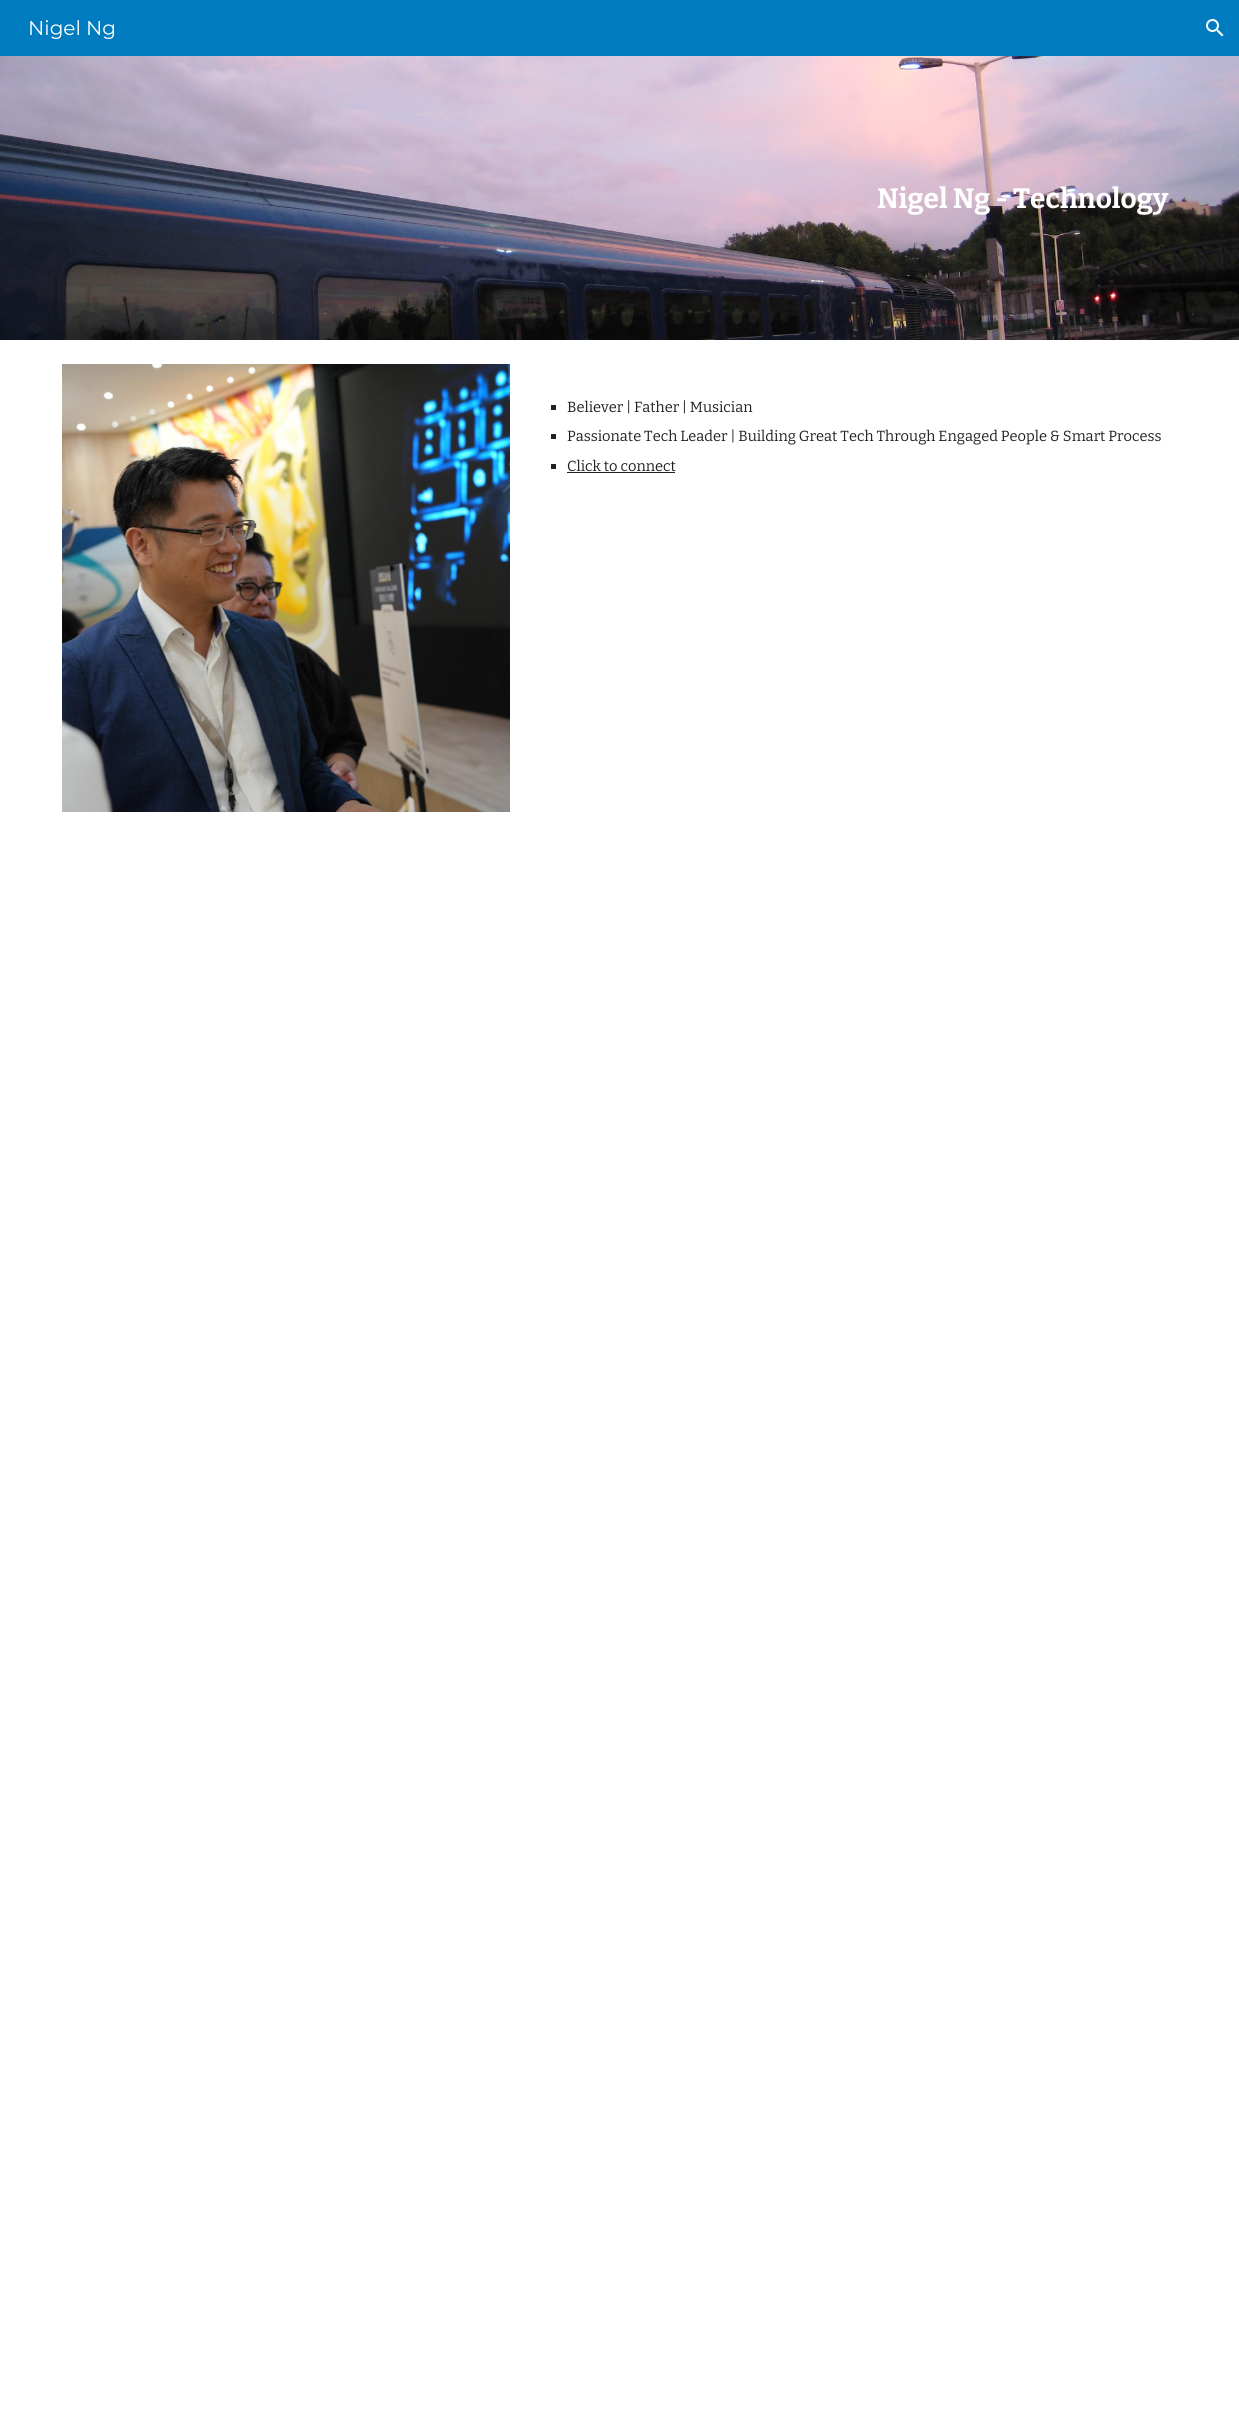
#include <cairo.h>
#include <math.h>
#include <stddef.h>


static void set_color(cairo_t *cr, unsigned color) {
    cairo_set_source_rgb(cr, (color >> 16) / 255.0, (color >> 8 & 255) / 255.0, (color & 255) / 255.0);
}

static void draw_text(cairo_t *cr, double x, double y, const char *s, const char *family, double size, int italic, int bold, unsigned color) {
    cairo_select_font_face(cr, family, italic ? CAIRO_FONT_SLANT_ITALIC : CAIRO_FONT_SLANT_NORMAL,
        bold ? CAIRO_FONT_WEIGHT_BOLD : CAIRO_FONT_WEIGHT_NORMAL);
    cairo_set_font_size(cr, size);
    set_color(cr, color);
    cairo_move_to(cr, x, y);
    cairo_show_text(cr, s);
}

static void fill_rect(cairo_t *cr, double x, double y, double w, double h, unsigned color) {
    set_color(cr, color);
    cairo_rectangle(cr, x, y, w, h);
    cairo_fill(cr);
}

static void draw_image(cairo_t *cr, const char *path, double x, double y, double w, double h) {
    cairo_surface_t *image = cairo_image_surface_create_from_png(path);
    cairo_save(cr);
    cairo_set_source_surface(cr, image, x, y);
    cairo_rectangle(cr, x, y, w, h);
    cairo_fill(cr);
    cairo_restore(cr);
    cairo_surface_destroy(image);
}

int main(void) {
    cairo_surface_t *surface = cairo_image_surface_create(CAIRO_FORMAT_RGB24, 1239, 2421);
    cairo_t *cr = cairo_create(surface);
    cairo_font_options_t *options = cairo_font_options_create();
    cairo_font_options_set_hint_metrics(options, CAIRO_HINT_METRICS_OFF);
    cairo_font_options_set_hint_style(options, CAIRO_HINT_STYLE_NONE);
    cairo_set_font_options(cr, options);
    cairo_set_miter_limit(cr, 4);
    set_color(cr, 0xFFFFFF);
    cairo_paint(cr);
    fill_rect(cr, 0, 0, 1239, 56, 0x007BBF);
    draw_text(cr, 28, 35, "Nigel Ng", "Montserrat", 20, 0, 0, 0xFFFFFF);
    draw_image(cr, "assets/img1.png", 1206, 19, 18, 18);
    draw_image(cr, "assets/img2.png", 0, 56, 1239, 284);
    draw_text(cr, 877, 208, "Nigel Ng - Technology", "Bitter", 28, 0, 1, 0xFFFFFF);
    draw_image(cr, "assets/img3.png", 62, 364, 448, 448);
    fill_rect(cr, 551, 405, 5, 5, 0x212121);
    draw_text(cr, 567, 412, "Believer | Father | Musician", "Bitter", 14.65, 0, 0, 0x212121);
    fill_rect(cr, 551, 434, 5, 5, 0x212121);
    draw_text(cr, 567, 441, "Passionate Tech Leader | Building Great Tech Through Engaged People & Smart Process", "Bitter", 14.65, 0, 0, 0x212121);
    fill_rect(cr, 551, 464, 5, 5, 0x212121);
    draw_text(cr, 567, 471, "Click to connect", "Bitter", 14.65, 0, 0, 0x212121);
    fill_rect(cr, 567, 472, 108, 1, 0x212121);
    cairo_surface_write_to_png(surface, "output.png");
    cairo_font_options_destroy(options);
    cairo_destroy(cr);
    cairo_surface_destroy(surface);
    return 0;
}
